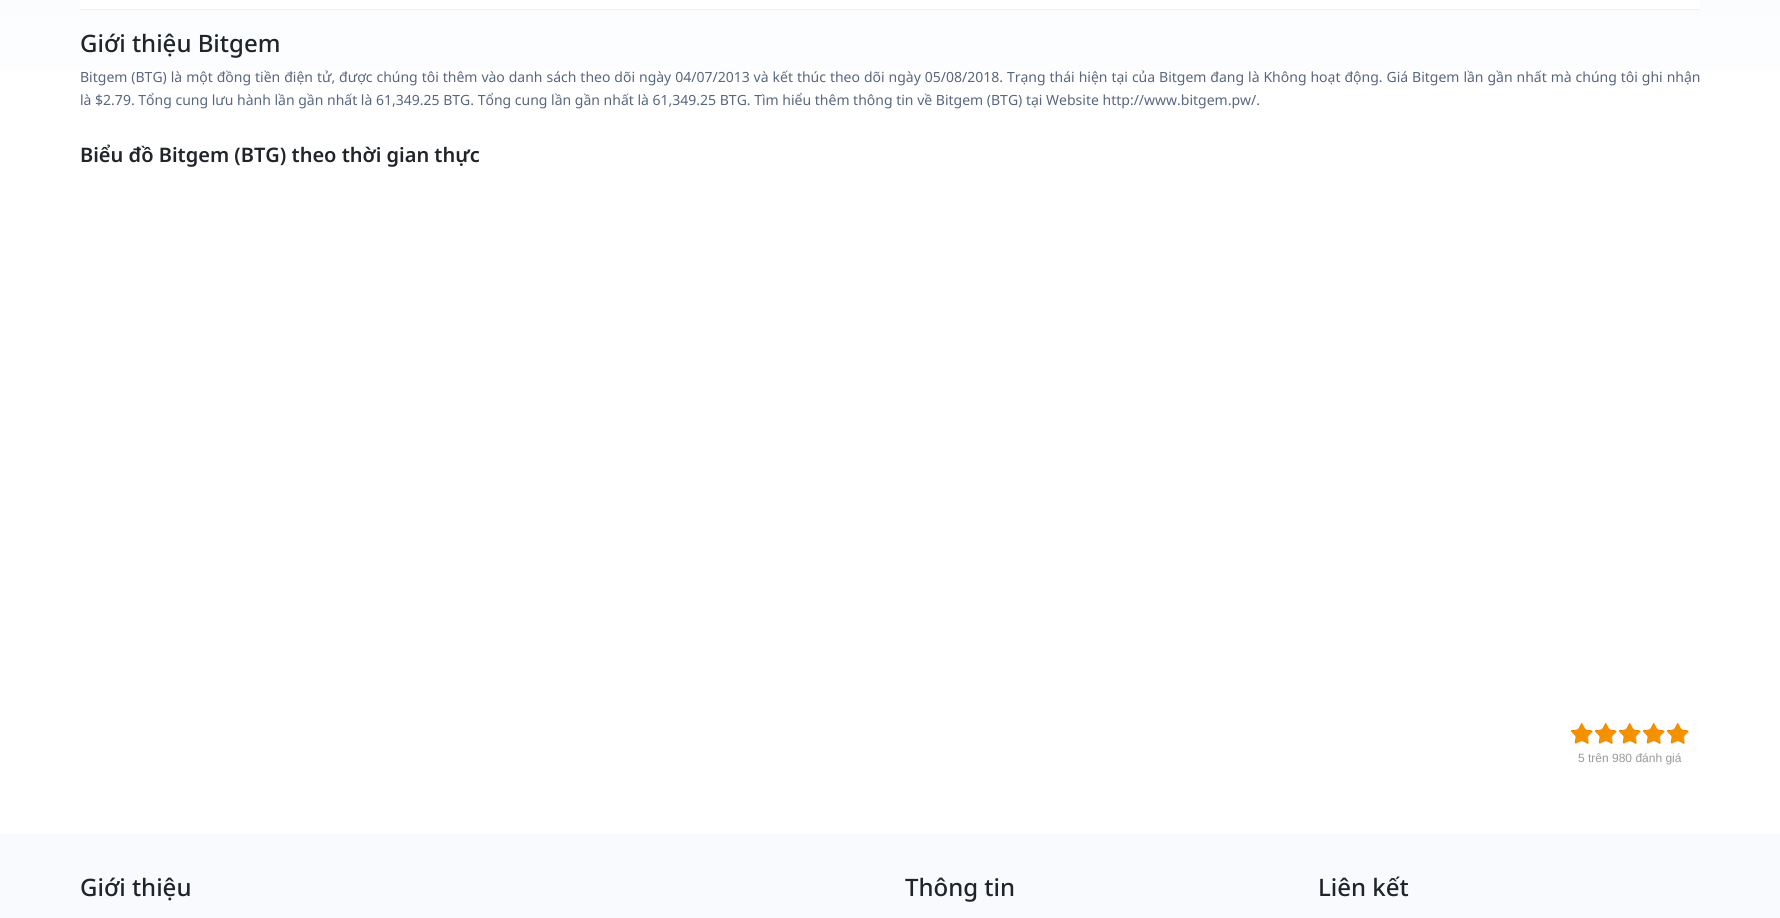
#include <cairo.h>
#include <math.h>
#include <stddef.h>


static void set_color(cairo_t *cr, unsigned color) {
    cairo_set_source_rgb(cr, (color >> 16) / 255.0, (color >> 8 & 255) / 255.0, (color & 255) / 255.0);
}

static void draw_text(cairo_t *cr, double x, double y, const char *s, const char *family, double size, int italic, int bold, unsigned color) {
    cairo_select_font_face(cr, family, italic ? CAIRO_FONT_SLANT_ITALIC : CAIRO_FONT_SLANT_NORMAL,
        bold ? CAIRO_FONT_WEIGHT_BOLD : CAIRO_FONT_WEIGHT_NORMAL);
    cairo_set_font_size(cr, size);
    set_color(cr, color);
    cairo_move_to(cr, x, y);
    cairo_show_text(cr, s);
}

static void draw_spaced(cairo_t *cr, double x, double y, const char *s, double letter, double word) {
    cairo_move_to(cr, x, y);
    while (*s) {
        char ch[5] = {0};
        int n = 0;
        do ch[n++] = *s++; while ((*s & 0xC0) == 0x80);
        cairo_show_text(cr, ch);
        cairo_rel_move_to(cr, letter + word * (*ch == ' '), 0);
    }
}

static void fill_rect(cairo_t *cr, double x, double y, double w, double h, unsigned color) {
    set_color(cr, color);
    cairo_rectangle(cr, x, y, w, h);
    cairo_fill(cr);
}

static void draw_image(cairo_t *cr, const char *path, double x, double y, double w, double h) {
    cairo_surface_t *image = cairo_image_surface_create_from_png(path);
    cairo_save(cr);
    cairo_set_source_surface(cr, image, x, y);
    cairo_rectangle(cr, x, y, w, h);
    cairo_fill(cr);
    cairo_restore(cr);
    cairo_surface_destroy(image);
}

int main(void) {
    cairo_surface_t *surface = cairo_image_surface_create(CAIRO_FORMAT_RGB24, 1780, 918);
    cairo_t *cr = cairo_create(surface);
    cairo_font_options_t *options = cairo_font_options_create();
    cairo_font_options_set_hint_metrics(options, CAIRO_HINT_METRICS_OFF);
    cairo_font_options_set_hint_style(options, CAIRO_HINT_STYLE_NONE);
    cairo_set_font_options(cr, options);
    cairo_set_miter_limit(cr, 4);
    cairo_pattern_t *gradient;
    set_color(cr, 0xFFFFFF);
    cairo_paint(cr);
    gradient = cairo_pattern_create_linear(890, -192, 890, 804);
    cairo_pattern_add_color_stop_rgba(gradient, 0, 0.973, 0.98, 0.992, 1);
    cairo_pattern_add_color_stop_rgba(gradient, 0.41, 1, 1, 1, 1);
    cairo_set_source(cr, gradient);
    cairo_pattern_destroy(gradient);
    cairo_rectangle(cr, 0, 0, 1780, 71);
    cairo_fill(cr);
    fill_rect(cr, 80, 0, 1620, 9, 0xFFFFFF);
    fill_rect(cr, 80, 9, 1620, 1, 0xEFF2F5);
    draw_text(cr, 80, 52, "Giới thiệu Bitgem", "Noto Sans Medium", 24, 0, 0, 0x212529);
    cairo_select_font_face(cr, "Noto Sans", CAIRO_FONT_SLANT_NORMAL, CAIRO_FONT_WEIGHT_NORMAL);
    cairo_set_font_size(cr, 14);
    set_color(cr, 0x58667E);
    draw_spaced(cr, 80, 82, "Bitgem (BTG) là một đồng tiền điện tử, được chúng tôi thêm vào danh sách theo dõi ngày 04/07/2013 và kết thúc theo dõi ngày 05/08/2018. Trạng thái hiện tại của Bitgem đang là Không hoạt động. Giá Bitgem lần gần nhất mà chúng tôi ghi nhận", 0, 0.3);
    draw_text(cr, 80, 105, "là $2.79. Tổng cung lưu hành lần gần nhất là 61,349.25 BTG. Tổng cung lần gần nhất là 61,349.25 BTG. Tìm hiểu thêm thông tin về Bitgem (BTG) tại Website http://www.bitgem.pw/.", "Noto Sans", 14, 0, 0, 0x58667E);
    draw_text(cr, 80, 162, "Biểu đồ Bitgem (BTG) theo thời gian thực", "Noto Sans SemiBold", 20, 0, 0, 0x212529);
    draw_image(cr, "assets/img1.png", 1571, 723, 118, 22);
    draw_image(cr, "assets/img2.png", 1571, 723, 118, 21);
    draw_text(cr, 1578, 762, "5 trên 980 đánh giá", "Liberation Sans", 12, 0, 0, 0x999999);
    fill_rect(cr, 0, 834, 1780, 84, 0xF8FAFD);
    draw_text(cr, 80, 896, "Giới thiệu", "Noto Sans Medium", 24, 0, 0, 0x212529);
    draw_text(cr, 905, 896, "Thông tin", "Noto Sans Medium", 24, 0, 0, 0x212529);
    draw_text(cr, 1318, 896, "Liên kết", "Noto Sans Medium", 24, 0, 0, 0x212529);
    cairo_surface_write_to_png(surface, "output.png");
    cairo_font_options_destroy(options);
    cairo_destroy(cr);
    cairo_surface_destroy(surface);
    return 0;
}
